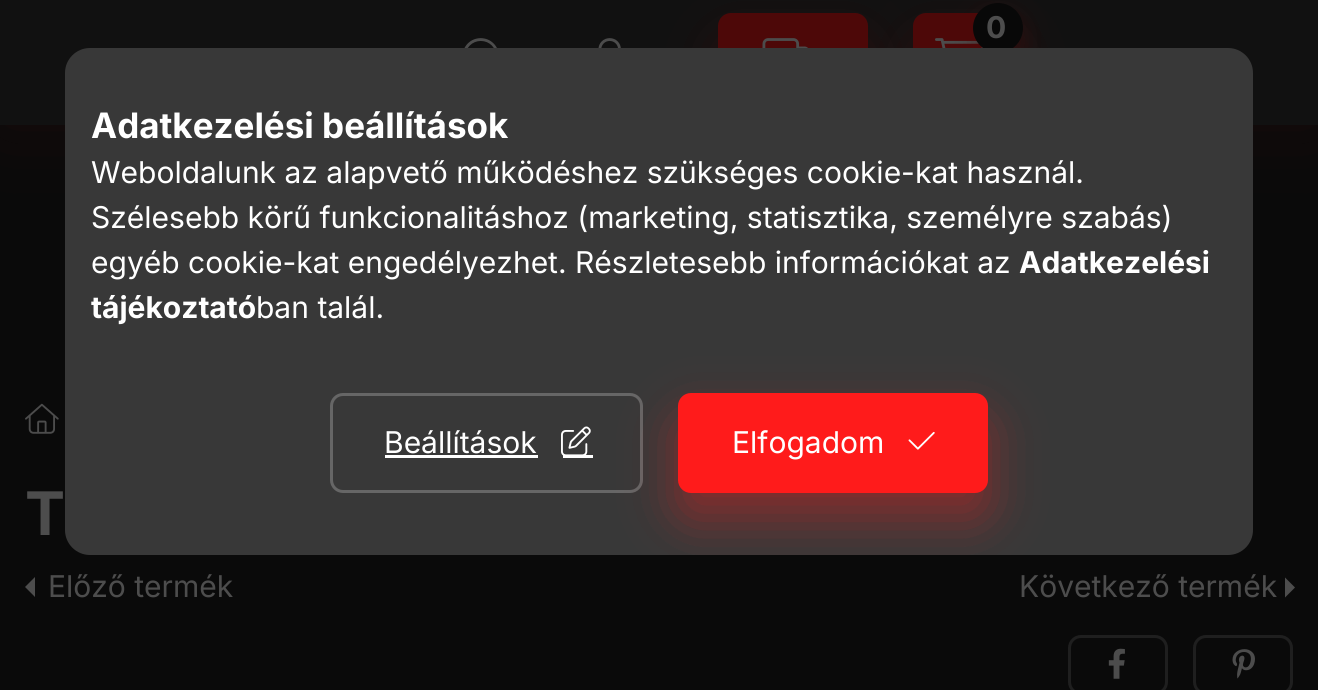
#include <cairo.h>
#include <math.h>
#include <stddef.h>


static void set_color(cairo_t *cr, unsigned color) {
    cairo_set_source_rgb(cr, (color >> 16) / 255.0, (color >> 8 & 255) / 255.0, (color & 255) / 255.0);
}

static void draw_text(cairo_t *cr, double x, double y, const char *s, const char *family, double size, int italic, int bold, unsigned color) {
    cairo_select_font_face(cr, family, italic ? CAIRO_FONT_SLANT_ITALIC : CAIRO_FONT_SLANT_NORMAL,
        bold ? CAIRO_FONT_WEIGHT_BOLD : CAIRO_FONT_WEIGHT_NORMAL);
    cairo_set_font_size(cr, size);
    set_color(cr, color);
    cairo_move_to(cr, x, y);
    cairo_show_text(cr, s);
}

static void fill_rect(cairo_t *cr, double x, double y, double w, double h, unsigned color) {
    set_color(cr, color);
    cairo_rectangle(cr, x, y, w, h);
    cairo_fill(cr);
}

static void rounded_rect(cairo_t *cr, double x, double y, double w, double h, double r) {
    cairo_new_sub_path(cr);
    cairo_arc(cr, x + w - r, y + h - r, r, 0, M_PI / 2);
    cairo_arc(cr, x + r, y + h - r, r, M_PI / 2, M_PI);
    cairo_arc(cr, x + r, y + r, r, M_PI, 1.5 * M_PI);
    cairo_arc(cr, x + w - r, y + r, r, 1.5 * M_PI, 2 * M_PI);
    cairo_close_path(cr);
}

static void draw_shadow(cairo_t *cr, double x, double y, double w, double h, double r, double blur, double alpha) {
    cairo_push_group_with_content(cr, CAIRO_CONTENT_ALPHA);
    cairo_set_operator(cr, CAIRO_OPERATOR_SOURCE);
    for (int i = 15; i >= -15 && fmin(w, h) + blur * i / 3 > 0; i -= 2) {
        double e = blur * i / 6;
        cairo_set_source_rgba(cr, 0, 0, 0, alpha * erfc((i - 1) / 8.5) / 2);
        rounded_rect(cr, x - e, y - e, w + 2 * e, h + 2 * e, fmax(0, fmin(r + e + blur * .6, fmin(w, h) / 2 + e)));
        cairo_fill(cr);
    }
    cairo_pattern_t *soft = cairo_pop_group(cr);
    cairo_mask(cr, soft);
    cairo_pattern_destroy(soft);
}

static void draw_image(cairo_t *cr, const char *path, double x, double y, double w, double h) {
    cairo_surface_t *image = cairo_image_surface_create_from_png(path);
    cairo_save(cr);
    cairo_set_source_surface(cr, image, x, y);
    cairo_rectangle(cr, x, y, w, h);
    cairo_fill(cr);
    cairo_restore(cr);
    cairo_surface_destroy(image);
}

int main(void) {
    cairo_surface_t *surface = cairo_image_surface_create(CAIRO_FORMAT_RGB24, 1318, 690);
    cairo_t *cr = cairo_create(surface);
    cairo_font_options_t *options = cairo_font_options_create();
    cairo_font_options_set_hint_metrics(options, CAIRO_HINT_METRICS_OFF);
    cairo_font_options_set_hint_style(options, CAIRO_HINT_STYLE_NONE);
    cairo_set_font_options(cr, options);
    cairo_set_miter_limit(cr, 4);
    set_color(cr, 0x0A0A0A);
    cairo_paint(cr);
    set_color(cr, 0x4D0808);
    draw_shadow(cr, 0, 0, 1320, 125, 0, 37.5, 0.2);
    fill_rect(cr, 0, 0, 1318, 125, 0x111111);
    set_color(cr, 0x4D0808);
    draw_shadow(cr, 718, 38, 150, 100, 13, 25, 0.4);
    set_color(cr, 0x4D0808);
    rounded_rect(cr, 719.5, 14.5, 147, 97, 11.5);
    cairo_fill_preserve(cr);
    cairo_set_line_width(cr, 3);
    cairo_stroke(cr);
    draw_image(cr, "assets/img1.png", 762, 38, 46, 10);
    set_color(cr, 0x4D0808);
    draw_shadow(cr, 913, 38, 100, 100, 13, 25, 0.4);
    set_color(cr, 0x4D0808);
    rounded_rect(cr, 913, 13, 100, 100, 13);
    cairo_fill(cr);
    draw_image(cr, "assets/img2.png", 935, 38, 48, 10);
    set_color(cr, 0x4D0808);
    draw_shadow(cr, 973, 15, 50, 50, 25, 12.5, 0.4);
    set_color(cr, 0x080808);
    cairo_arc(cr, 998, 28, 25, 0, 2 * M_PI);
    cairo_fill(cr);
    draw_text(cr, 986, 38, "0", "Inter", 30, 0, 1, 0x4D4D4D);
    draw_image(cr, "assets/img3.png", 464, 38, 33, 10);
    draw_image(cr, "assets/img4.png", 598, 38, 23, 10);
    draw_image(cr, "assets/img5.png", 25, 403, 34, 31);
    draw_text(cr, 25, 535, "T", "Inter", 60, 0, 1, 0x4D4D4D);
    cairo_new_path(cr);
    cairo_move_to(cr, 35, 597);
    cairo_line_to(cr, 35, 577);
    cairo_line_to(cr, 25, 587);
    cairo_close_path(cr);
    cairo_fill(cr);
    draw_text(cr, 48, 597, "Előző termék", "Inter", 30, 0, 0, 0x4D4D4D);
    draw_text(cr, 1019, 597, "Következő termék", "Inter", 30, 0, 0, 0x4D4D4D);
    cairo_new_path(cr);
    cairo_move_to(cr, 1285, 597.5);
    cairo_line_to(cr, 1285, 577.5);
    cairo_line_to(cr, 1295, 587.5);
    cairo_close_path(cr);
    cairo_fill(cr);
    rounded_rect(cr, 1069.5, 636.5, 97, 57, 11.5);
    set_color(cr, 0x1F1F1F);
    cairo_stroke(cr);
    draw_image(cr, "assets/img6.png", 1108, 648, 17, 31);
    rounded_rect(cr, 1194.5, 636.5, 97, 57, 11.5);
    cairo_stroke(cr);
    draw_image(cr, "assets/img7.png", 1232, 649, 23, 30);
    set_color(cr, 0x383838);
    rounded_rect(cr, 65, 48, 1188, 507, 25);
    cairo_fill(cr);
    draw_text(cr, 91, 138, "Adatkezelési beállítások", "Inter", 35, 0, 1, 0xFFFFFF);
    draw_text(cr, 91, 183, "Weboldalunk az alapvető működéshez szükséges cookie-kat használ.", "Inter", 30, 0, 0, 0xFFFFFF);
    draw_text(cr, 91, 228, "Szélesebb körű funkcionalitáshoz (marketing, statisztika, személyre szabás)", "Inter", 30, 0, 0, 0xFFFFFF);
    draw_text(cr, 91, 273, "egyéb cookie-kat engedélyezhet. Részletesebb információkat az", "Inter", 30, 0, 0, 0xFFFFFF);
    draw_text(cr, 1019, 273, "Adatkezelési", "Inter", 30, 0, 1, 0xFFFFFF);
    draw_text(cr, 91, 318, "tájékoztató", "Inter", 30, 0, 1, 0xFFFFFF);
    draw_text(cr, 256, 318, "ban talál.", "Inter", 30, 0, 0, 0xFFFFFF);
    rounded_rect(cr, 331.5, 394.5, 310, 97, 11.5);
    set_color(cr, 0x666666);
    cairo_stroke(cr);
    draw_text(cr, 384, 453, "Beállítások", "Inter", 30, 0, 0, 0xFFFFFF);
    fill_rect(cr, 385, 455, 153, 3, 0xFFFFFF);
    fill_rect(cr, 563, 455, 30, 3, 0xFFFFFF);
    draw_image(cr, "assets/img8.png", 561, 426, 30, 30);
    cairo_save(cr);
    rounded_rect(cr, 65, 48, 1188, 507, 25);
    cairo_clip(cr);
    set_color(cr, 0xFF1B1B);
    draw_shadow(cr, 678, 418, 310, 100, 13, 25, 0.4);
    cairo_restore(cr);
    set_color(cr, 0xFF1B1B);
    rounded_rect(cr, 679.5, 394.5, 307, 97, 11.5);
    cairo_fill_preserve(cr);
    cairo_stroke(cr);
    draw_text(cr, 732, 453, "Elfogadom", "Inter", 30, 0, 0, 0xFFFFFF);
    draw_image(cr, "assets/img9.png", 908, 431, 27, 19);
    cairo_surface_write_to_png(surface, "output.png");
    cairo_font_options_destroy(options);
    cairo_destroy(cr);
    cairo_surface_destroy(surface);
    return 0;
}
